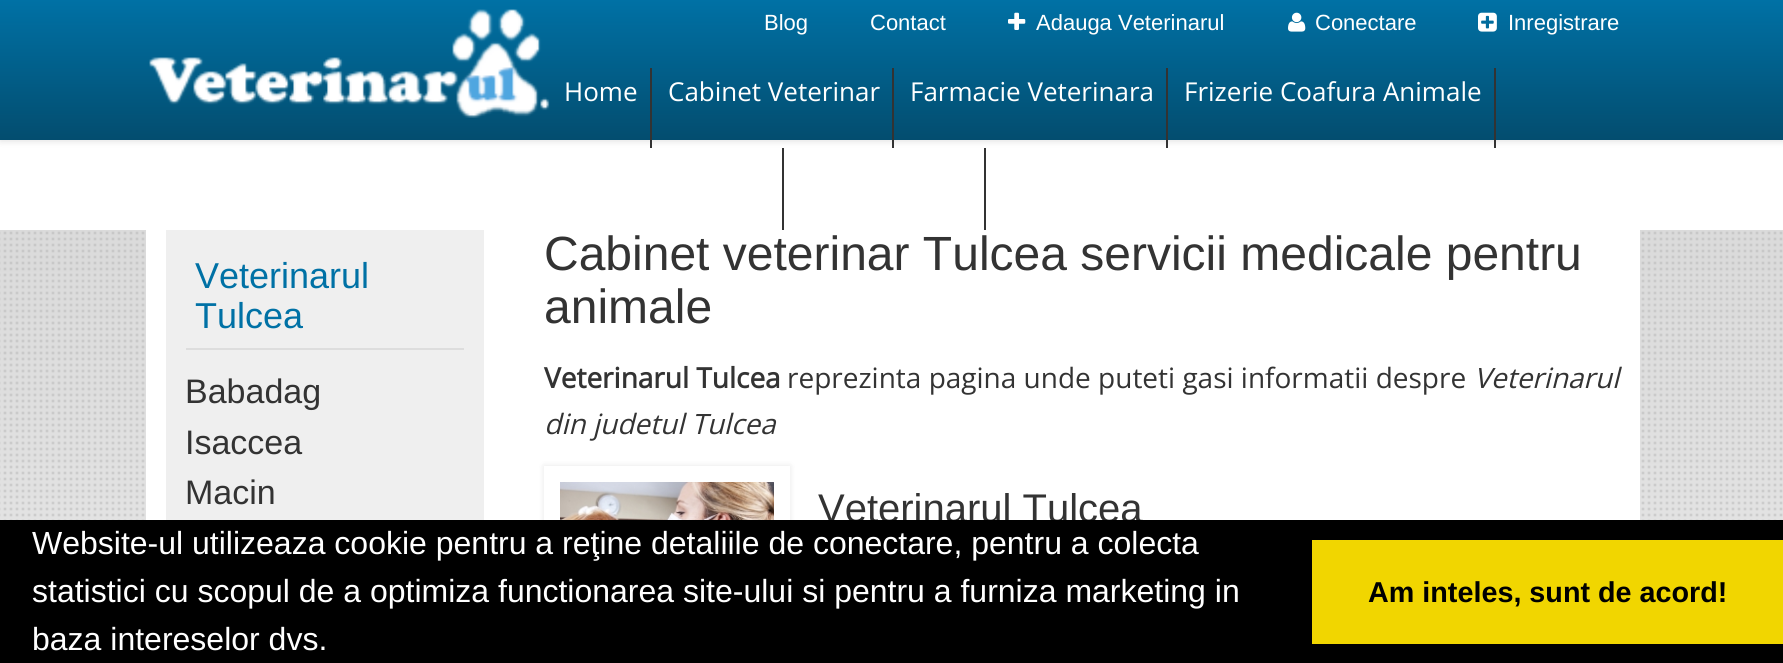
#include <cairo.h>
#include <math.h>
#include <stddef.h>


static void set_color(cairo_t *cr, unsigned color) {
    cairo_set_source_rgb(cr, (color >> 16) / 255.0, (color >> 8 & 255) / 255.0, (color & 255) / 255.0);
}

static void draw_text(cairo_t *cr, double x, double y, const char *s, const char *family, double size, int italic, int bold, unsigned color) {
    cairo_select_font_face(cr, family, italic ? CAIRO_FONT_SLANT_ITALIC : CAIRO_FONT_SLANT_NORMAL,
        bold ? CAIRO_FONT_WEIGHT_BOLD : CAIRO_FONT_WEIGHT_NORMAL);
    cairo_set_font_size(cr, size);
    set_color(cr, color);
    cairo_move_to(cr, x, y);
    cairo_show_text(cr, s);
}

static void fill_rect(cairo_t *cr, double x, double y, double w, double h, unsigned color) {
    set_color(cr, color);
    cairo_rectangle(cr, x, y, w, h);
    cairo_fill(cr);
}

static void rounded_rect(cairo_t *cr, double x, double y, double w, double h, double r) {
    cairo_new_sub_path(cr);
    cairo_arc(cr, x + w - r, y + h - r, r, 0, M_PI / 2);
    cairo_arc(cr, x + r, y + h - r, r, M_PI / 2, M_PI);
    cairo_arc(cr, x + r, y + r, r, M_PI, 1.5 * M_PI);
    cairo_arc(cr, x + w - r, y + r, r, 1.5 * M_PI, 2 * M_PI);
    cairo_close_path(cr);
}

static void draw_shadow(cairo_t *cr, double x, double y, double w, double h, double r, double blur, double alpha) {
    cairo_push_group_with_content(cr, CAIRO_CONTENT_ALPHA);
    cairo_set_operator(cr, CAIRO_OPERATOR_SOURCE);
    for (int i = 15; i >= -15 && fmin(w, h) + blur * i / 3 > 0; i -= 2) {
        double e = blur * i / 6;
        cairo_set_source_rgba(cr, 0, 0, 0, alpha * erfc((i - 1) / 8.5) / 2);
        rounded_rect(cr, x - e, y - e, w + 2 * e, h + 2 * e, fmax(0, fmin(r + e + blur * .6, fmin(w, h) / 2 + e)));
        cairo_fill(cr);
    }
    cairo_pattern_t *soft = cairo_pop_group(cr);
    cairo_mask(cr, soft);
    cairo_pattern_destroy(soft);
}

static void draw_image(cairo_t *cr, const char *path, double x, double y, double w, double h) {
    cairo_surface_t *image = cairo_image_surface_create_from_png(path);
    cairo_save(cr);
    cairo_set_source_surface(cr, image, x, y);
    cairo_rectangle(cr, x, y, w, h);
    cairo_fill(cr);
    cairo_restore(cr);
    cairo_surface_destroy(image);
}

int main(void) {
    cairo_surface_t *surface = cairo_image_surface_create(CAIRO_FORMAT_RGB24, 1783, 663);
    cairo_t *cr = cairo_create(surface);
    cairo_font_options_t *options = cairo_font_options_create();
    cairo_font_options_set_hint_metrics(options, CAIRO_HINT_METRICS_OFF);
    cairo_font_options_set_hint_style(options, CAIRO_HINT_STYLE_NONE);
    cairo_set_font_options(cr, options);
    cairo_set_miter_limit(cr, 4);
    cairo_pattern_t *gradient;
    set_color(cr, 0xFFFFFF);
    cairo_paint(cr);
    set_color(cr, 0x000000);
    draw_shadow(cr, 0, 2, 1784, 140, 0, 3, 0.1);
    gradient = cairo_pattern_create_linear(892, 0, 892, 140);
    cairo_pattern_add_color_stop_rgba(gradient, 0, 0, 0.443, 0.647, 1);
    cairo_pattern_add_color_stop_rgba(gradient, 1, 0.012, 0.302, 0.435, 1);
    cairo_set_source(cr, gradient);
    cairo_pattern_destroy(gradient);
    cairo_rectangle(cr, 0, 0, 1783, 140);
    cairo_fill(cr);
    draw_image(cr, "assets/img1.png", 149, 9, 401, 109);
    draw_text(cr, 764, 30, "Blog", "Liberation Sans", 22, 0, 0, 0xFFFFFF);
    draw_text(cr, 870, 30, "Contact", "Liberation Sans", 22, 0, 0, 0xFFFFFF);
    draw_image(cr, "assets/img2.png", 1008, 12, 18, 18);
    draw_text(cr, 1036, 30, "Adauga Veterinarul", "Liberation Sans", 22, 0, 0, 0xFFFFFF);
    draw_image(cr, "assets/img3.png", 1288, 12, 18, 20);
    draw_text(cr, 1315, 30, "Conectare", "Liberation Sans", 22, 0, 0, 0xFFFFFF);
    draw_image(cr, "assets/img4.png", 1478, 12, 19, 20);
    draw_text(cr, 1508, 30, "Inregistrare", "Liberation Sans", 22, 0, 0, 0xFFFFFF);
    fill_rect(cr, 650, 68, 2, 80, 0x333333);
    draw_text(cr, 564, 101, "Home", "Open Sans", 26, 0, 0, 0xFFFFFF);
    fill_rect(cr, 892, 68, 2, 80, 0x333333);
    draw_text(cr, 668, 101, "Cabinet Veterinar", "Open Sans", 26, 0, 0, 0xFFFFFF);
    fill_rect(cr, 1166, 68, 2, 80, 0x333333);
    draw_text(cr, 910, 101, "Farmacie Veterinara", "Open Sans", 26, 0, 0, 0xFFFFFF);
    fill_rect(cr, 1494, 68, 2, 80, 0x333333);
    draw_text(cr, 1184, 101, "Frizerie Coafura Animale", "Open Sans", 26, 0, 0, 0xFFFFFF);
    fill_rect(cr, 782, 148, 2, 82, 0x333333);
    fill_rect(cr, 984, 148, 2, 82, 0x333333);
    draw_image(cr, "assets/img5.png", 0, 230, 1783, 290);
    fill_rect(cr, 146, 230, 1494, 290, 0xFFFFFF);
    fill_rect(cr, 166, 230, 318, 290, 0xEFEFEF);
    fill_rect(cr, 186, 348, 278, 2, 0xDDDDDD);
    draw_text(cr, 195, 288, "Veterinarul", "Liberation Sans", 36, 0, 0, 0x0071A5);
    draw_text(cr, 195, 328, "Tulcea", "Liberation Sans", 36, 0, 0, 0x0071A5);
    draw_text(cr, 185, 403, "Babadag", "Liberation Sans", 34, 0, 0, 0x333333);
    draw_text(cr, 185, 454, "Isaccea", "Liberation Sans", 34, 0, 0, 0x333333);
    draw_text(cr, 185, 504, "Macin", "Liberation Sans", 34, 0, 0, 0x333333);
    draw_text(cr, 544, 270, "Cabinet veterinar Tulcea servicii medicale pentru", "Liberation Sans", 48, 0, 0, 0x333333);
    draw_text(cr, 544, 323, "animale", "Liberation Sans", 48, 0, 0, 0x333333);
    draw_text(cr, 544, 388, "Veterinarul Tulcea", "Open Sans", 28, 0, 1, 0x333333);
    draw_text(cr, 787, 388, "reprezinta pagina unde puteti gasi informatii despre", "Open Sans", 28, 0, 0, 0x333333);
    draw_text(cr, 1474, 388, "Veterinarul", "Open Sans", 28, 1, 0, 0x333333);
    draw_text(cr, 544, 434, "din judetul Tulcea", "Open Sans", 28, 1, 0, 0x333333);
    set_color(cr, 0x000000);
    draw_shadow(cr, 544, 466, 246, 174, 0, 3, 0.1);
    cairo_rectangle(cr, 551, 473, 232, 160);
    set_color(cr, 0xFFFFFF);
    cairo_set_line_width(cr, 14);
    cairo_stroke(cr);
    cairo_rectangle(cr, 559, 481, 216, 144);
    cairo_set_line_width(cr, 2);
    cairo_stroke(cr);
    draw_image(cr, "assets/img6.png", 560, 482, 214, 38);
    draw_text(cr, 818, 522, "Veterinarul Tulcea", "Liberation Sans", 40, 0, 0, 0x333333);
    fill_rect(cr, 0, 520, 1783, 143, 0x000000);
    draw_text(cr, 32, 554, "Website-ul utilizeaza cookie pentru a reţine detaliile de conectare, pentru a colecta", "Liberation Sans", 32, 0, 0, 0xFFFFFF);
    draw_text(cr, 32, 602, "statistici cu scopul de a optimiza functionarea site-ului si pentru a furniza marketing in", "Liberation Sans", 32, 0, 0, 0xFFFFFF);
    draw_text(cr, 32, 650, "baza intereselor dvs.", "Liberation Sans", 32, 0, 0, 0xFFFFFF);
    fill_rect(cr, 1312, 540, 471, 104, 0xF1D600);
    draw_text(cr, 1368, 602, "Am inteles, sunt de acord!", "Liberation Sans", 28.75, 0, 1, 0x000000);
    cairo_surface_write_to_png(surface, "output.png");
    cairo_font_options_destroy(options);
    cairo_destroy(cr);
    cairo_surface_destroy(surface);
    return 0;
}
